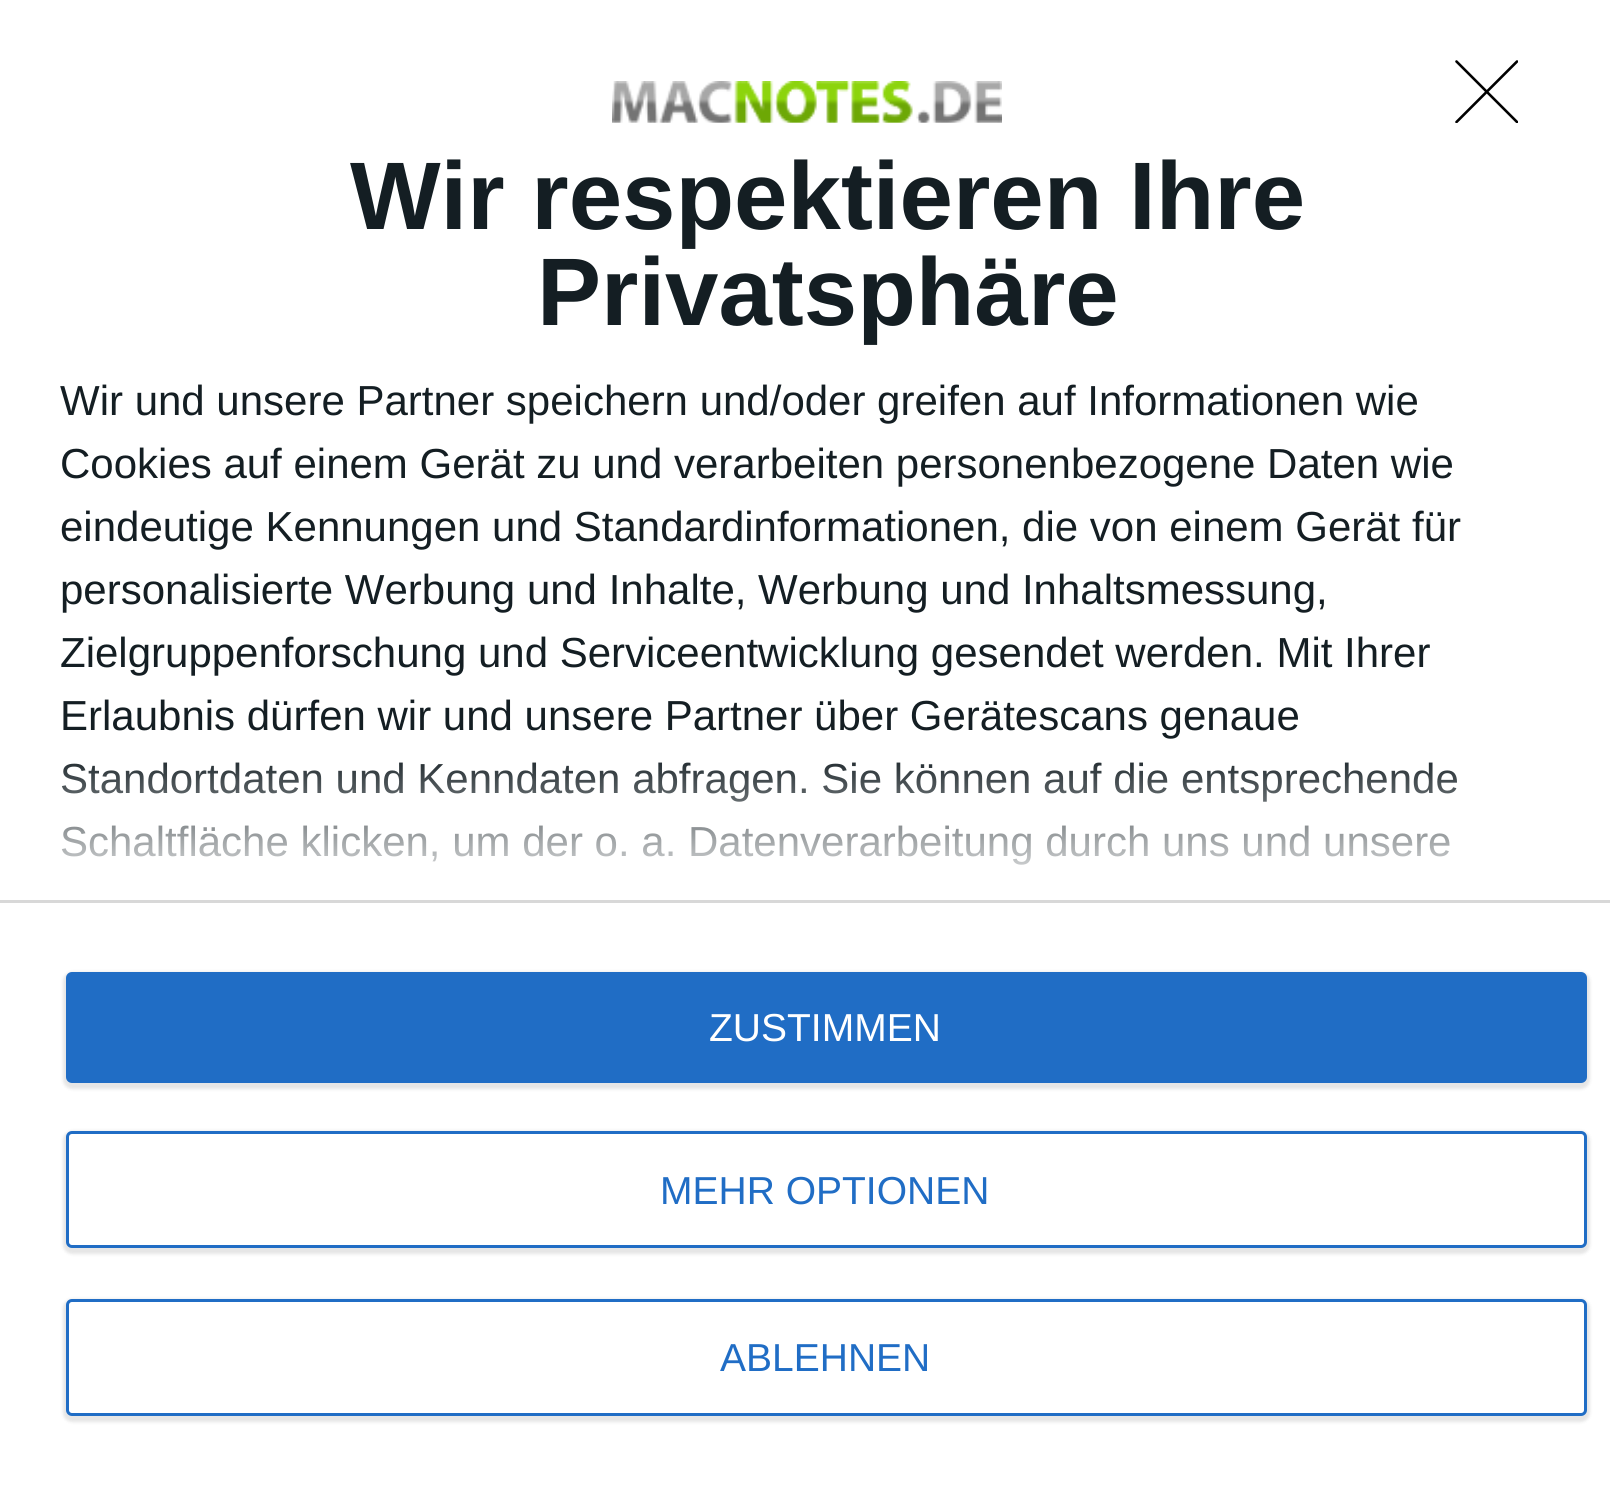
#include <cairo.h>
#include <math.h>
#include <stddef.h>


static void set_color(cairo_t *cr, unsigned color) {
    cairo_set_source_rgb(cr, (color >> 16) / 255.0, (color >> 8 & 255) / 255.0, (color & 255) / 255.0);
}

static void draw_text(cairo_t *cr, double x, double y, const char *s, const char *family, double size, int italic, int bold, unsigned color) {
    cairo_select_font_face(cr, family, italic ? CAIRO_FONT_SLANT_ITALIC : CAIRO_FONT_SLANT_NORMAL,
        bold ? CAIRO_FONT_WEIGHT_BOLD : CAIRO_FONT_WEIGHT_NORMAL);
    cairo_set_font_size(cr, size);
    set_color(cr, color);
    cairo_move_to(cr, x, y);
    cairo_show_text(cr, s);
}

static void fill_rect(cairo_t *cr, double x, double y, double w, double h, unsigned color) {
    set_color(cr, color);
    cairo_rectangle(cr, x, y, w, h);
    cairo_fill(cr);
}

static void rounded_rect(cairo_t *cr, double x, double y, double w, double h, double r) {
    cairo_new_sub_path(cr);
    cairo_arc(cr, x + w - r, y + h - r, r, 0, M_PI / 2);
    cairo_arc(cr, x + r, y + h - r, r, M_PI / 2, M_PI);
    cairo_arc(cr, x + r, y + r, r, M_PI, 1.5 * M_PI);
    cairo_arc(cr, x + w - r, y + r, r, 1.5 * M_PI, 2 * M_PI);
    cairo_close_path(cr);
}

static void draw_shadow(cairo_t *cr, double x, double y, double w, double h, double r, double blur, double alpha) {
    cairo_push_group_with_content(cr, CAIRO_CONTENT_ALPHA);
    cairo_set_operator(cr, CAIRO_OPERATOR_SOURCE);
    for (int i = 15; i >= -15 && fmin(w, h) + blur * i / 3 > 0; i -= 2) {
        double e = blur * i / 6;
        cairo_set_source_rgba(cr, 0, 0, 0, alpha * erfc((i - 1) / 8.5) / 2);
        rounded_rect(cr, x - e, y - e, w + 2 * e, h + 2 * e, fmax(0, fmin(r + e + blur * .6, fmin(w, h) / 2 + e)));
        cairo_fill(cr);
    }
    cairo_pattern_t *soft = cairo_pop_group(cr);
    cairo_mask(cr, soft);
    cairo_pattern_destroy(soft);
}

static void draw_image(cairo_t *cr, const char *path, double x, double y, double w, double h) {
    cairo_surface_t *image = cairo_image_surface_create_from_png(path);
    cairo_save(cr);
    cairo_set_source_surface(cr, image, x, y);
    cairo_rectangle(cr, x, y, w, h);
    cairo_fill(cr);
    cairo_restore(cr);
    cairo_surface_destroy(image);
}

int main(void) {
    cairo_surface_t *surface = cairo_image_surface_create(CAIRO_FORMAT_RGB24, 1610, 1494);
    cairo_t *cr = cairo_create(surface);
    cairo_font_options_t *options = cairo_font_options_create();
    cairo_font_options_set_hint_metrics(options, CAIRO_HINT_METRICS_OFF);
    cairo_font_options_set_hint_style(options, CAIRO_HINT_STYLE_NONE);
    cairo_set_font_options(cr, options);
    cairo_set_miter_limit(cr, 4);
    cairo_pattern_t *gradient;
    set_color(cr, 0xFFFFFF);
    cairo_paint(cr);
    cairo_save(cr);
    cairo_rectangle(cr, 1455, 60, 63, 63);
    cairo_clip(cr);
    cairo_new_path(cr);
    cairo_move_to(cr, 1456.5, 61.5);
    cairo_line_to(cr, 1517, 122);
    cairo_move_to(cr, 1517, 61.5);
    cairo_line_to(cr, 1456.5, 122);
    set_color(cr, 0x000000);
    cairo_set_line_width(cr, 2.6);
    cairo_set_line_cap(cr, CAIRO_LINE_CAP_ROUND);
    cairo_set_line_join(cr, CAIRO_LINE_JOIN_ROUND);
    cairo_stroke(cr);
    cairo_restore(cr);
    draw_image(cr, "assets/img1.png", 612, 81, 390, 42);
    draw_text(cr, 350, 229, "Wir respektieren Ihre", "Liberation Sans", 96, 0, 1, 0x141E23);
    draw_text(cr, 537, 325, "Privatsphäre", "Liberation Sans", 96, 0, 1, 0x141E23);
    draw_text(cr, 60, 415, "Wir und unsere Partner speichern und/oder greifen auf Informationen wie", "Liberation Sans", 42, 0, 0, 0x141E23);
    draw_text(cr, 60, 478, "Cookies auf einem Gerät zu und verarbeiten personenbezogene Daten wie", "Liberation Sans", 42, 0, 0, 0x141E23);
    draw_text(cr, 60, 541, "eindeutige Kennungen und Standardinformationen, die von einem Gerät für", "Liberation Sans", 42, 0, 0, 0x141E23);
    draw_text(cr, 60, 604, "personalisierte Werbung und Inhalte, Werbung und Inhaltsmessung,", "Liberation Sans", 42, 0, 0, 0x141E23);
    draw_text(cr, 60, 667, "Zielgruppenforschung und Serviceentwicklung gesendet werden. Mit Ihrer", "Liberation Sans", 42, 0, 0, 0x141E23);
    draw_text(cr, 60, 730, "Erlaubnis dürfen wir und unsere Partner über Gerätescans genaue", "Liberation Sans", 42, 0, 0, 0x141E23);
    draw_text(cr, 60, 793, "Standortdaten und Kenndaten abfragen. Sie können auf die entsprechende", "Liberation Sans", 42, 0, 0, 0x141E23);
    draw_text(cr, 60, 856, "Schaltfläche klicken, um der o. a. Datenverarbeitung durch uns und unsere", "Liberation Sans", 42, 0, 0, 0x141E23);
    fill_rect(cr, 0, 900, 1610, 3, 0xD8D8D8);
    gradient = cairo_pattern_create_linear(806, 900, 806, 750);
    cairo_pattern_add_color_stop_rgba(gradient, 0, 1, 1, 1, 1);
    cairo_pattern_add_color_stop_rgba(gradient, 1, 1, 1, 1, 0);
    cairo_set_source(cr, gradient);
    cairo_pattern_destroy(gradient);
    cairo_rectangle(cr, 62, 762, 1395, 103);
    cairo_fill(cr);
    set_color(cr, 0x000000);
    draw_shadow(cr, 63, 972, 1527, 117, 9, 1.5, 0.1);
    set_color(cr, 0x206DC5);
    rounded_rect(cr, 66, 972, 1521, 111, 6);
    cairo_fill(cr);
    draw_text(cr, 709, 1041, "ZUSTIMMEN", "Liberation Sans", 39, 0, 0, 0xFFFFFF);
    set_color(cr, 0x000000);
    draw_shadow(cr, 63, 1131, 1527, 123, 9, 1.5, 0.1);
    set_color(cr, 0xFFFFFF);
    rounded_rect(cr, 67.5, 1132.5, 1518, 114, 4.5);
    cairo_fill_preserve(cr);
    set_color(cr, 0x206DC5);
    cairo_set_line_width(cr, 3);
    cairo_stroke(cr);
    draw_text(cr, 660, 1204, "MEHR OPTIONEN", "Liberation Sans", 39, 0, 0, 0x206DC5);
    set_color(cr, 0x000000);
    draw_shadow(cr, 63, 1299, 1527, 123, 9, 1.5, 0.1);
    set_color(cr, 0xFFFFFF);
    rounded_rect(cr, 67.5, 1300.5, 1518, 114, 4.5);
    cairo_fill_preserve(cr);
    set_color(cr, 0x206DC5);
    cairo_stroke(cr);
    draw_text(cr, 720, 1371, "ABLEHNEN", "Liberation Sans", 39, 0, 0, 0x206DC5);
    cairo_surface_write_to_png(surface, "output.png");
    cairo_font_options_destroy(options);
    cairo_destroy(cr);
    cairo_surface_destroy(surface);
    return 0;
}
